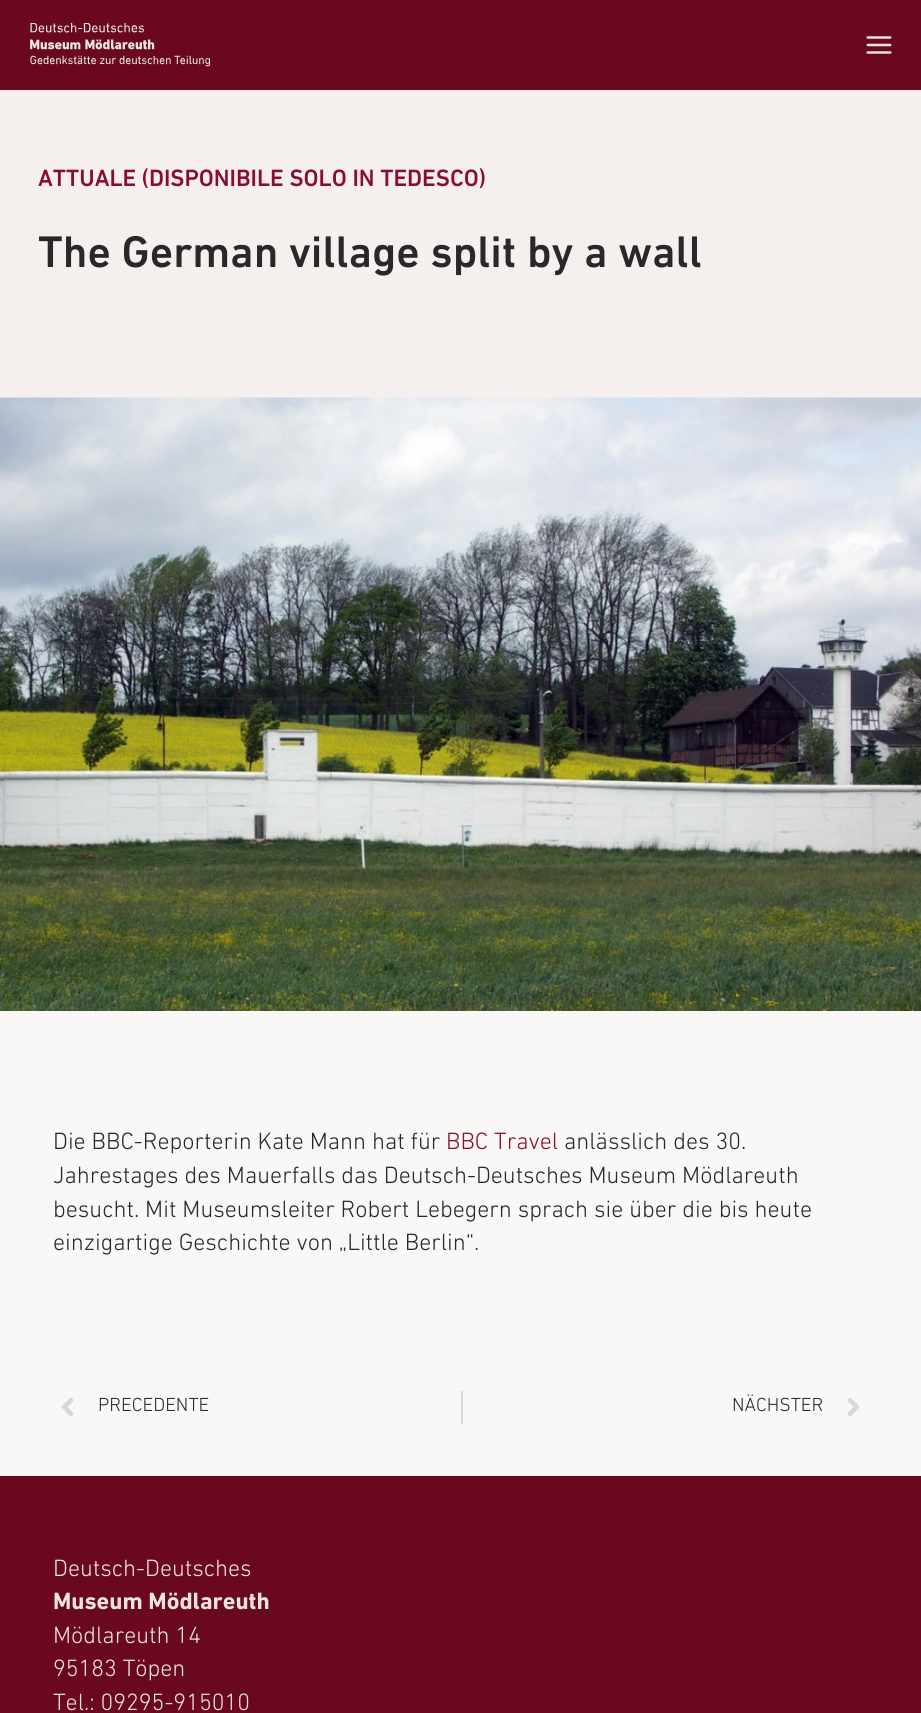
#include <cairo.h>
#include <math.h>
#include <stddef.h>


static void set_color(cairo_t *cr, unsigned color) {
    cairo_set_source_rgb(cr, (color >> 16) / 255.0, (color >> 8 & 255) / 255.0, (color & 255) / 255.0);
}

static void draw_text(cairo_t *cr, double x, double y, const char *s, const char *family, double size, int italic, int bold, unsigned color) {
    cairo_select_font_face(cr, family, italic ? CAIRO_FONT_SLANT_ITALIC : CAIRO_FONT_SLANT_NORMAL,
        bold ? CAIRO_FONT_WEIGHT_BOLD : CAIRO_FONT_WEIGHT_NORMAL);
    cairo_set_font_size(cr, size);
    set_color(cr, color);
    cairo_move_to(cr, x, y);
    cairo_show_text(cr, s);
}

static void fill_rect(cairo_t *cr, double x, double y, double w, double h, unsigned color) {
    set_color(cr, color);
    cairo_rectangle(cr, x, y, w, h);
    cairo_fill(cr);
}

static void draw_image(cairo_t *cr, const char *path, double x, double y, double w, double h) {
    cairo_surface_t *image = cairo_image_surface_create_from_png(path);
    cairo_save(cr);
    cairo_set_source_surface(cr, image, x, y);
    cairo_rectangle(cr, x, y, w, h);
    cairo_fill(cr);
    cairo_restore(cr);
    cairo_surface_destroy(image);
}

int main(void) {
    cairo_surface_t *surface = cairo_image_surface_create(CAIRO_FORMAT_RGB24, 921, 1713);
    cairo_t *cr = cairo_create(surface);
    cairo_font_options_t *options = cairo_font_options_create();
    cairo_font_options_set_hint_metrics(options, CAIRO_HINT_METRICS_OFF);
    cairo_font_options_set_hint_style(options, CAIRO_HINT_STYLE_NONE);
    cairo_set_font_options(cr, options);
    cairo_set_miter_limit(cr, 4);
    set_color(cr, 0xF9F8F7);
    cairo_paint(cr);
    fill_rect(cr, 0, 0, 921, 90, 0x6A0820);
    draw_image(cr, "assets/img1.png", 30, 23, 180, 44);
    draw_image(cr, "assets/img2.png", 866, 36, 26, 18);
    fill_rect(cr, 0, 90, 921, 308, 0xF5F0EE);
    draw_text(cr, 38, 186, "ATTUALE (DISPONIBILE SOLO IN TEDESCO)", "DIN Next Medium", 24, 0, 0, 0x8A0D2F);
    draw_text(cr, 38, 267, "The German village split by a wall", "DIN Next Medium", 45, 0, 0, 0x28282A);
    draw_image(cr, "assets/img3.png", 0, 397, 921, 614);
    draw_text(cr, 53, 1149, "Die BBC-Reporterin Kate Mann hat für", "DIN Next Light", 24, 0, 0, 0x28282A);
    draw_text(cr, 446, 1149, "BBC Travel", "DIN Next Light", 24, 0, 0, 0x8A0D2F);
    draw_text(cr, 564, 1149, "anlässlich des 30.", "DIN Next Light", 24, 0, 0, 0x28282A);
    draw_text(cr, 53, 1183, "Jahrestages des Mauerfalls das Deutsch-Deutsches Museum Mödlareuth", "DIN Next Light", 24, 0, 0, 0x28282A);
    draw_text(cr, 53, 1217, "besucht. Mit Museumsleiter Robert Lebegern sprach sie über die bis heute", "DIN Next Light", 24, 0, 0, 0x28282A);
    draw_text(cr, 53, 1250, "einzigartige Geschichte von „Little Berlin“.", "DIN Next Light", 24, 0, 0, 0x28282A);
    draw_image(cr, "assets/img4.png", 61, 1397, 13, 20);
    draw_text(cr, 98, 1411, "PRECEDENTE", "DIN Next Light", 19.25, 0, 0, 0x28282A);
    fill_rect(cr, 461, 1391, 2, 33, 0xD5D8DC);
    draw_text(cr, 732, 1411, "NÄCHSTER", "DIN Next Light", 19.25, 0, 0, 0x28282A);
    draw_image(cr, "assets/img5.png", 847, 1397, 13, 20);
    fill_rect(cr, 0, 1476, 921, 237, 0x6A0820);
    draw_text(cr, 53, 1576, "Deutsch-Deutsches", "DIN Next Light", 24, 0, 0, 0xEBE4E2);
    draw_text(cr, 53, 1609, "Museum Mödlareuth", "DIN Next", 24, 0, 1, 0xEBE4E2);
    draw_text(cr, 53, 1643, "Mödlareuth 14", "DIN Next Light", 24, 0, 0, 0xEBE4E2);
    draw_text(cr, 53, 1676, "95183 Töpen", "DIN Next Light", 24, 0, 0, 0xEBE4E2);
    draw_text(cr, 53, 1710, "Tel.: 09295-915010", "DIN Next Light", 24, 0, 0, 0xEBE4E2);
    cairo_surface_write_to_png(surface, "output.png");
    cairo_font_options_destroy(options);
    cairo_destroy(cr);
    cairo_surface_destroy(surface);
    return 0;
}
